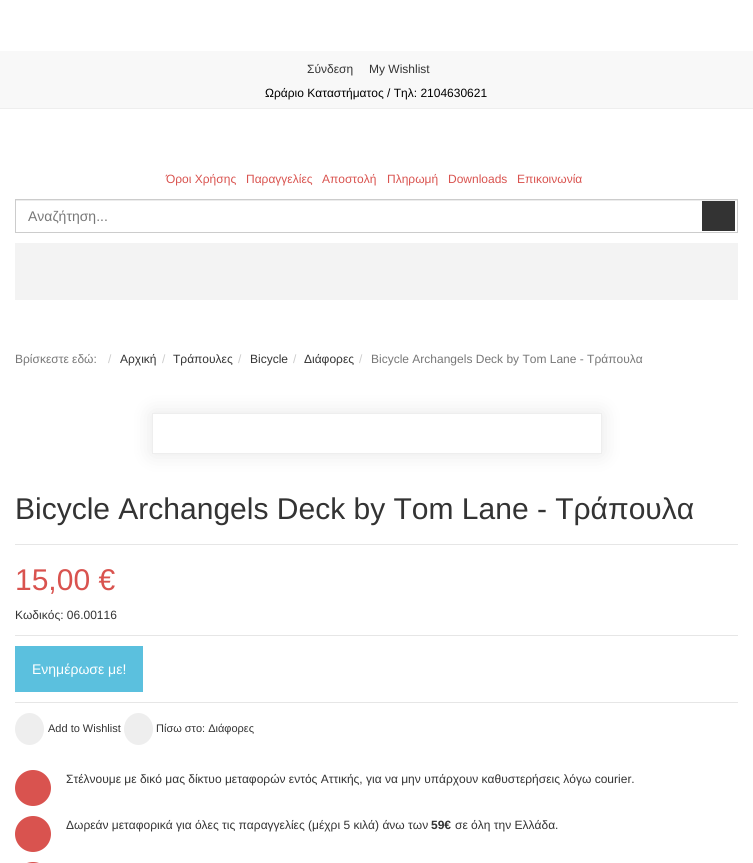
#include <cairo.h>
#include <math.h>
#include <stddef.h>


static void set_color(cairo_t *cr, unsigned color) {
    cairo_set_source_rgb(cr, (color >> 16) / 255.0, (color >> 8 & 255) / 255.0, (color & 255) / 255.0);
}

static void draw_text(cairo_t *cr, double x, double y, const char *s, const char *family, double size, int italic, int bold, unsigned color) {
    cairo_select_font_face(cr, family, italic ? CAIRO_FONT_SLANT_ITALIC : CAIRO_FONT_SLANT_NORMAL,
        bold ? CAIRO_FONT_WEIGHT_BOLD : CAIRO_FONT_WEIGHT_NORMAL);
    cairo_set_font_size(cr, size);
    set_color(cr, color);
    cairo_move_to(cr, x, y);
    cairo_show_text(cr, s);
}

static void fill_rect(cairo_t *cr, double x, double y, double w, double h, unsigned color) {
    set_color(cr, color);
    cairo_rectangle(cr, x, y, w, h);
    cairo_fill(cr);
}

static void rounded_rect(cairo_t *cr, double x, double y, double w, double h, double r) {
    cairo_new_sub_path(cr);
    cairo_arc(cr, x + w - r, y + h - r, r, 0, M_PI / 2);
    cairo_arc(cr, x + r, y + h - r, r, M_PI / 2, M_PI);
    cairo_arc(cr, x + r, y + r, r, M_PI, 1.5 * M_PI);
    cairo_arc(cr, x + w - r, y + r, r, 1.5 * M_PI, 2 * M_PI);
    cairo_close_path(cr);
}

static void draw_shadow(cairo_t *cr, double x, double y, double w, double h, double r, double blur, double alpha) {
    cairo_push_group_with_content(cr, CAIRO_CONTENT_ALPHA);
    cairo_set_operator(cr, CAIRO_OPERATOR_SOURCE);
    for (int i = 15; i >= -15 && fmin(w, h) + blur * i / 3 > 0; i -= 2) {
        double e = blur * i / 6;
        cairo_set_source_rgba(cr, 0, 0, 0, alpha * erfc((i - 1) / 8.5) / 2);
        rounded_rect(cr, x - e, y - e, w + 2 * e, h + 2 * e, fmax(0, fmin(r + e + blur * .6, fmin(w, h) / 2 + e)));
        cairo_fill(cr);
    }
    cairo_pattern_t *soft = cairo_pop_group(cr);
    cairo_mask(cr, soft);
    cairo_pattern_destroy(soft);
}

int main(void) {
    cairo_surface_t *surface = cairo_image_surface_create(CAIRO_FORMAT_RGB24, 753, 863);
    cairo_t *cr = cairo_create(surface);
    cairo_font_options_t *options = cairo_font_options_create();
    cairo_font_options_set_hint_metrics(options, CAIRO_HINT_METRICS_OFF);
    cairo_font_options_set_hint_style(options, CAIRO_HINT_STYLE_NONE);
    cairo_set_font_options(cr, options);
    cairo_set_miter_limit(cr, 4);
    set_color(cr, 0xFFFFFF);
    cairo_paint(cr);
    fill_rect(cr, 0, 51, 753, 57, 0xF8F8F8);
    fill_rect(cr, 0, 108, 753, 1, 0xEEEEEE);
    draw_text(cr, 307, 73, "Σύνδεση", "Liberation Sans", 12, 0, 0, 0x333333);
    draw_text(cr, 369, 73, "My Wishlist", "Liberation Sans", 12, 0, 0, 0x333333);
    draw_text(cr, 265, 97, "Ωράριο Καταστήματος / Τηλ: 2104630621", "Liberation Sans", 12, 0, 0, 0x000000);
    draw_text(cr, 166, 183, "Όροι Χρήσης", "Liberation Sans", 12, 0, 0, 0xD9534F);
    draw_text(cr, 246, 183, "Παραγγελίες", "Liberation Sans", 12, 0, 0, 0xD9534F);
    draw_text(cr, 322, 183, "Αποστολή", "Liberation Sans", 12, 0, 0, 0xD9534F);
    draw_text(cr, 387, 183, "Πληρωμή", "Liberation Sans", 12, 0, 0, 0xD9534F);
    draw_text(cr, 448, 183, "Downloads", "Liberation Sans", 12, 0, 0, 0xD9534F);
    draw_text(cr, 517, 183, "Επικοινωνία", "Liberation Sans", 12, 0, 0, 0xD9534F);
    fill_rect(cr, 16, 200, 721, 1, 0xECECEC);
    cairo_rectangle(cr, 15.5, 199.5, 722, 33);
    set_color(cr, 0xCCCCCC);
    cairo_set_line_width(cr, 1);
    cairo_stroke(cr);
    draw_text(cr, 28, 221, "Αναζήτηση...", "Liberation Sans", 14, 0, 0, 0x777777);
    fill_rect(cr, 702, 201, 33, 30, 0x333333);
    fill_rect(cr, 15, 243, 723, 57, 0xF3F3F3);
    draw_text(cr, 15, 363, "Βρίσκεστε εδώ:", "Liberation Sans", 12, 0, 0, 0x777777);
    draw_text(cr, 108, 363, "/", "Liberation Sans", 12, 0, 0, 0xCCCCCC);
    draw_text(cr, 120, 363, "Αρχική", "Liberation Sans", 12, 0, 0, 0x333333);
    draw_text(cr, 162, 363, "/", "Liberation Sans", 12, 0, 0, 0xCCCCCC);
    draw_text(cr, 173, 363, "Τράπουλες", "Liberation Sans", 12, 0, 0, 0x333333);
    draw_text(cr, 238, 363, "/", "Liberation Sans", 12, 0, 0, 0xCCCCCC);
    draw_text(cr, 250, 363, "Bicycle", "Liberation Sans", 12, 0, 0, 0x333333);
    draw_text(cr, 293, 363, "/", "Liberation Sans", 12, 0, 0, 0xCCCCCC);
    draw_text(cr, 304, 363, "Διάφορες", "Liberation Sans", 12, 0, 0, 0x333333);
    draw_text(cr, 359, 363, "/", "Liberation Sans", 12, 0, 0, 0xCCCCCC);
    draw_text(cr, 371, 363, "Bicycle Archangels Deck by Tom Lane - Τράπουλα", "Liberation Sans", 12, 0, 0, 0x777777);
    cairo_save(cr);
    cairo_set_fill_rule(cr, CAIRO_FILL_RULE_EVEN_ODD);
    cairo_new_path(cr);
    cairo_move_to(cr, 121, 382);
    cairo_line_to(cr, 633, 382);
    cairo_line_to(cr, 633, 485);
    cairo_line_to(cr, 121, 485);
    cairo_close_path(cr);
    cairo_move_to(cr, 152, 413);
    cairo_line_to(cr, 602, 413);
    cairo_line_to(cr, 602, 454);
    cairo_line_to(cr, 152, 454);
    cairo_close_path(cr);
    cairo_clip(cr);
    set_color(cr, 0x000000);
    draw_shadow(cr, 152, 413, 450, 41, 0, 10, 0.1);
    cairo_restore(cr);
    cairo_rectangle(cr, 152.5, 413.5, 449, 40);
    set_color(cr, 0xEEEEEE);
    cairo_stroke(cr);
    draw_text(cr, 15, 519, "Bicycle Archangels Deck by Tom Lane - Τράπουλα", "Liberation Sans", 30, 0, 0, 0x333333);
    fill_rect(cr, 15, 544, 723, 1, 0xE6E6E6);
    fill_rect(cr, 15, 635, 723, 1, 0xE6E6E6);
    draw_text(cr, 15, 590, "15,00 €", "Liberation Sans", 30, 0, 0, 0xD9534F);
    draw_text(cr, 15, 619, "Κωδικός: 06.00116", "Liberation Sans", 12, 0, 0, 0x333333);
    fill_rect(cr, 15, 702, 723, 1, 0xE6E6E6);
    fill_rect(cr, 15, 646, 128, 46, 0x5BC0DE);
    draw_text(cr, 32, 674, "Ενημέρωσε με!", "Liberation Sans", 14, 0, 0, 0xFFFFFF);
    set_color(cr, 0xEEEEEE);
    cairo_new_path(cr);
    cairo_move_to(cr, 29.5, 713);
    cairo_curve_to(cr, 37.5, 713, 44, 720, 44, 729);
    cairo_curve_to(cr, 44, 738, 37.5, 745, 29.5, 745);
    cairo_curve_to(cr, 21.5, 745, 15, 738, 15, 729);
    cairo_curve_to(cr, 15, 720, 21.5, 713, 29.5, 713);
    cairo_close_path(cr);
    cairo_fill(cr);
    draw_text(cr, 48, 732, "Add to Wishlist", "Liberation Sans", 11, 0, 0, 0x333333);
    set_color(cr, 0xEEEEEE);
    cairo_new_path(cr);
    cairo_move_to(cr, 138.5, 713);
    cairo_curve_to(cr, 146.5, 713, 153, 720, 153, 729);
    cairo_curve_to(cr, 153, 738, 146.5, 745, 138.5, 745);
    cairo_curve_to(cr, 130.5, 745, 124, 738, 124, 729);
    cairo_curve_to(cr, 124, 720, 130.5, 713, 138.5, 713);
    cairo_close_path(cr);
    cairo_fill(cr);
    draw_text(cr, 156, 732, "Πίσω στο: Διάφορες", "Liberation Sans", 11, 0, 0, 0x333333);
    set_color(cr, 0xD9534F);
    cairo_new_path(cr);
    cairo_arc(cr, 33, 788, 18, 0, 2 * M_PI);
    cairo_fill(cr);
    draw_text(cr, 66, 783, "Στέλνουμε με δικό μας δίκτυο μεταφορών εντός Αττικής, για να μην υπάρχουν καθυστερήσεις λόγω courier.", "Liberation Sans", 12, 0, 0, 0x333333);
    set_color(cr, 0xD9534F);
    cairo_new_path(cr);
    cairo_arc(cr, 33, 834, 18, 0, 2 * M_PI);
    cairo_fill(cr);
    draw_text(cr, 66, 829, "Δωρεάν μεταφορικά για όλες τις παραγγελίες (μέχρι 5 κιλά) άνω των", "Liberation Sans", 12, 0, 0, 0x333333);
    draw_text(cr, 431, 829, "59€", "Liberation Sans", 12, 0, 1, 0x333333);
    draw_text(cr, 455, 829, "σε όλη την Ελλάδα.", "Liberation Sans", 12, 0, 0, 0x333333);
    set_color(cr, 0xD9534F);
    rounded_rect(cr, 15, 862, 36, 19, 18);
    cairo_fill(cr);
    cairo_surface_write_to_png(surface, "output.png");
    cairo_font_options_destroy(options);
    cairo_destroy(cr);
    cairo_surface_destroy(surface);
    return 0;
}
